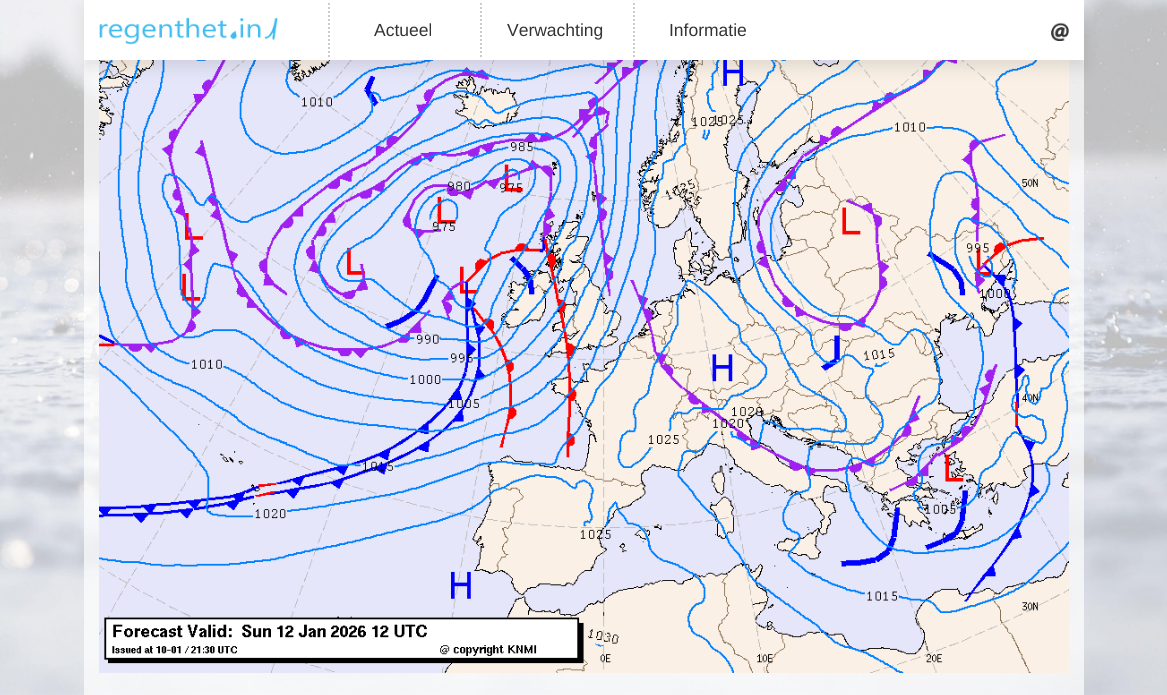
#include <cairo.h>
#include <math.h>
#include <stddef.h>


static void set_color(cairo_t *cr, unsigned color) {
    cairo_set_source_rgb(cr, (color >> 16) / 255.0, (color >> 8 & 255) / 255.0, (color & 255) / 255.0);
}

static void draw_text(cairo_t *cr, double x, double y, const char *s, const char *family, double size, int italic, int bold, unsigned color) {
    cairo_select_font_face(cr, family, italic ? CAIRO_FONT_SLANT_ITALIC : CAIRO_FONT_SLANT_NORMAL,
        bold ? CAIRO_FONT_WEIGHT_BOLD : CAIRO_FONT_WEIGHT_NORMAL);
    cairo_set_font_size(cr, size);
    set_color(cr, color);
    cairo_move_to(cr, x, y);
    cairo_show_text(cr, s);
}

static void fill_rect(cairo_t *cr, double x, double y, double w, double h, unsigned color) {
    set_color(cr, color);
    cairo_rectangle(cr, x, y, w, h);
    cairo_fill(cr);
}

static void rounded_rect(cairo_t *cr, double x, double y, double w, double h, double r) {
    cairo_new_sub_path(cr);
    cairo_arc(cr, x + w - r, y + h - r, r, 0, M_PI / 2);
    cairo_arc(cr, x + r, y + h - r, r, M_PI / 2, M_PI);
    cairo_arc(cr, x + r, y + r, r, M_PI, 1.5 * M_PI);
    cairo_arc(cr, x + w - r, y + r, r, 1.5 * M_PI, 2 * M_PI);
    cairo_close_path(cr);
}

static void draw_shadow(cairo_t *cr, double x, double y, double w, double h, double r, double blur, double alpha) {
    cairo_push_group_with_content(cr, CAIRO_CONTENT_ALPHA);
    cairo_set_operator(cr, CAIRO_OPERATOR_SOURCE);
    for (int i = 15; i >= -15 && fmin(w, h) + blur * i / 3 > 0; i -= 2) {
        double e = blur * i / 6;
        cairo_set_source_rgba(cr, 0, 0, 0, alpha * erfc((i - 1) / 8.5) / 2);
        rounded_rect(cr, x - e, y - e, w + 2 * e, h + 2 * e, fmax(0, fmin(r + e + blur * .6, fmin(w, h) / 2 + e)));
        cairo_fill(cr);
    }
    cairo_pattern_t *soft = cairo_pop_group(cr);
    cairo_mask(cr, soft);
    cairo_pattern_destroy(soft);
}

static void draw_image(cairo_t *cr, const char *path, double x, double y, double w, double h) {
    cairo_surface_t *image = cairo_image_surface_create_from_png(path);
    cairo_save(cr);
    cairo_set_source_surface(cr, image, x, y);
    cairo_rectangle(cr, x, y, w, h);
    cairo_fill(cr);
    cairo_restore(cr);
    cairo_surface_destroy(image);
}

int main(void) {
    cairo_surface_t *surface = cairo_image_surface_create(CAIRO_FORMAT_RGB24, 1167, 695);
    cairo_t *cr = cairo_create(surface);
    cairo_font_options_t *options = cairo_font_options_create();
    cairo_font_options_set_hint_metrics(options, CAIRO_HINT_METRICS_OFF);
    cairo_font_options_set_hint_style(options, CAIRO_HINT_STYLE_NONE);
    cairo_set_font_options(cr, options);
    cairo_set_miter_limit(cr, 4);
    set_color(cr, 0xFFFFFF);
    cairo_paint(cr);
    draw_image(cr, "assets/img1.png", 0, 0, 1167, 695);
    draw_image(cr, "assets/img2.png", 0, 694, 1167, 1);
    cairo_set_source_rgba(cr, 1, 1, 1, 0.7);
    cairo_rectangle(cr, 84, 60, 1000, 635);
    cairo_fill(cr);
    draw_image(cr, "assets/img5.png", 99, 60, 970, 613);
    set_color(cr, 0x000000);
    draw_shadow(cr, 84, 8, 1000, 60, 0, 8, 0.1);
    fill_rect(cr, 84, 0, 1000, 60, 0xFFFFFF);
    draw_image(cr, "assets/img3.png", 99, 17, 179, 28);
    cairo_new_path(cr);
    cairo_move_to(cr, 329, 3);
    cairo_line_to(cr, 329, 58);
    set_color(cr, 0xCCCCCC);
    cairo_set_dash(cr, (double[]){2, 2}, 2, 0);
    cairo_stroke(cr);
    draw_text(cr, 374, 36, "Actueel", "Liberation Sans", 17.5, 0, 0, 0x333333);
    cairo_new_path(cr);
    cairo_move_to(cr, 481, 3);
    cairo_line_to(cr, 481, 58);
    set_color(cr, 0xCCCCCC);
    cairo_stroke(cr);
    draw_text(cr, 507, 36, "Verwachting", "Liberation Sans", 17.5, 0, 0, 0x333333);
    cairo_new_path(cr);
    cairo_move_to(cr, 634, 3);
    cairo_line_to(cr, 634, 58);
    set_color(cr, 0xCCCCCC);
    cairo_stroke(cr);
    draw_text(cr, 669, 36, "Informatie", "Liberation Sans", 17.5, 0, 0, 0x333333);
    draw_image(cr, "assets/img4.png", 1051, 22, 18, 19);
    cairo_surface_write_to_png(surface, "output.png");
    cairo_font_options_destroy(options);
    cairo_destroy(cr);
    cairo_surface_destroy(surface);
    return 0;
}
